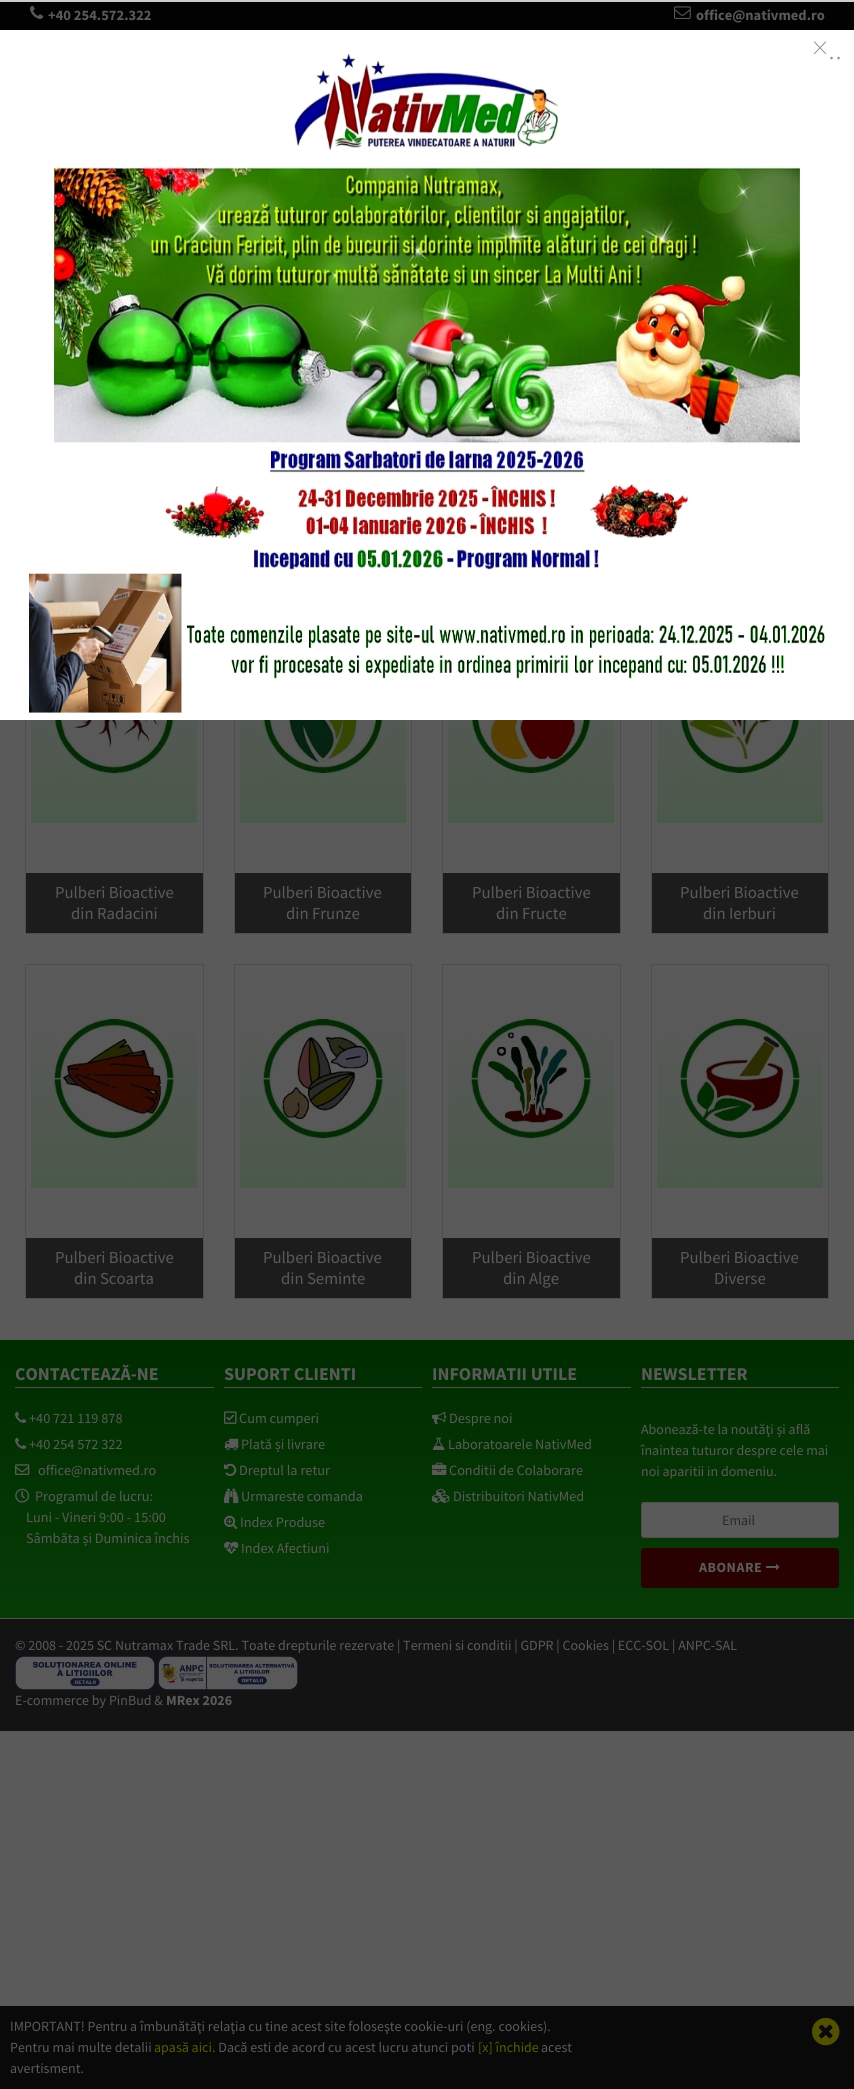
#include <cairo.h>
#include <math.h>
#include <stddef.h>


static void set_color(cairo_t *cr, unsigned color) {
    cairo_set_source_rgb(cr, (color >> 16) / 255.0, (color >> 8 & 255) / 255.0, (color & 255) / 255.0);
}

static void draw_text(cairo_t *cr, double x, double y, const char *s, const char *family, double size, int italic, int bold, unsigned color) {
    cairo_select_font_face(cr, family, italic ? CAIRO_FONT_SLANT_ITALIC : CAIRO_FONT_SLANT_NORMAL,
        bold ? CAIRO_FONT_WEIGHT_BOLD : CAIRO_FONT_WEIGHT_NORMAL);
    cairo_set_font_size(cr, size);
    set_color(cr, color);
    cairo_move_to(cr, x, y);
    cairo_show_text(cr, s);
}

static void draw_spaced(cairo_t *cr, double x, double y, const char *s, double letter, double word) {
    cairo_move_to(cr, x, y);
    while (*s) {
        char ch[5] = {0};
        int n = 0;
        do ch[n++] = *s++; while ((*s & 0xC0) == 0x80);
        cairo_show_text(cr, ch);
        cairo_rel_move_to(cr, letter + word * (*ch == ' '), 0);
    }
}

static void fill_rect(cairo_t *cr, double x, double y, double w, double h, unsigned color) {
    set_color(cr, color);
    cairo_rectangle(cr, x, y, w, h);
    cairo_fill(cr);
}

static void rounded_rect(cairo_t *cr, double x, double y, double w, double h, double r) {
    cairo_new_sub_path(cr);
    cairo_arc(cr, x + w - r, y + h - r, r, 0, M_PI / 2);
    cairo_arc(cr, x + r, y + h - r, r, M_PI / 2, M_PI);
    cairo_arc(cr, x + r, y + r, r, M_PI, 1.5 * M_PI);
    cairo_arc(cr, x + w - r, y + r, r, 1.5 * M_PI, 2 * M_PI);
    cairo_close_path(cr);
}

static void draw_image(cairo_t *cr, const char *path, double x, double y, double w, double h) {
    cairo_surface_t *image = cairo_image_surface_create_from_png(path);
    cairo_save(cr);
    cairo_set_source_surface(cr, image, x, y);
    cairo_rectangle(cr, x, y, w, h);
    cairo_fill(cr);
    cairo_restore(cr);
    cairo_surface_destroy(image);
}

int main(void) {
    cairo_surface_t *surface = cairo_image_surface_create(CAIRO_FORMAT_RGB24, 854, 2089);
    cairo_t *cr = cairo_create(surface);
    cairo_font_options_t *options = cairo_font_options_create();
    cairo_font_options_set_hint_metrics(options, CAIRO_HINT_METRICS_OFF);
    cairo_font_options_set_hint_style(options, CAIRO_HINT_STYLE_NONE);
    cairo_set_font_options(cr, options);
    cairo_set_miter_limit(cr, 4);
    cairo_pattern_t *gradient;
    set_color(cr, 0x5A5A5A);
    cairo_paint(cr);
    fill_rect(cr, 0, 0, 854, 2, 0xCCCCCC);
    fill_rect(cr, 0, 2, 854, 28, 0x020202);
    draw_image(cr, "assets/img1.png", 30, 5, 14, 14);
    draw_text(cr, 48, 20, "+40 254.572.322", "Source Sans Pro", 14.5, 0, 1, 0x5A5A5A);
    draw_image(cr, "assets/img2.png", 674, 6, 17, 13);
    draw_text(cr, 696, 20, "office@nativmed.ro", "Source Sans Pro", 14.5, 0, 1, 0x5A5A5A);
    cairo_rectangle(cr, 25.5, 599.5, 178, 334);
    set_color(cr, 0x4E4E4E);
    cairo_set_line_width(cr, 1);
    cairo_stroke(cr);
    cairo_rectangle(cr, 234.5, 599.5, 177, 334);
    cairo_stroke(cr);
    cairo_rectangle(cr, 442.5, 599.5, 178, 334);
    cairo_stroke(cr);
    cairo_rectangle(cr, 651.5, 599.5, 177, 334);
    cairo_stroke(cr);
    fill_rect(cr, 0, 30, 854, 690, 0xFFFFFF);
    draw_image(cr, "assets/img3.png", 28, 53, 797, 660);
    draw_text(cr, 812, 59, "×..", "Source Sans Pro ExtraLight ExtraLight", 34, 0, 0, 0x8F8F8F);
    draw_image(cr, "assets/img4.png", 31, 720, 166, 103);
    fill_rect(cr, 26, 873, 177, 60, 0x1C1C1C);
    draw_text(cr, 55, 898, "Pulberi Bioactive", "Source Sans Pro", 16.75, 0, 0, 0x5A5A5A);
    draw_text(cr, 71, 919, "din Radacini", "Source Sans Pro", 16.75, 0, 0, 0x5A5A5A);
    draw_image(cr, "assets/img5.png", 240, 720, 166, 103);
    fill_rect(cr, 235, 873, 176, 60, 0x1C1C1C);
    draw_text(cr, 263, 898, "Pulberi Bioactive", "Source Sans Pro", 16.75, 0, 0, 0x5A5A5A);
    draw_text(cr, 286, 919, "din Frunze", "Source Sans Pro", 16.75, 0, 0, 0x5A5A5A);
    draw_image(cr, "assets/img6.png", 448, 720, 166, 103);
    fill_rect(cr, 443, 873, 177, 60, 0x1C1C1C);
    draw_text(cr, 472, 898, "Pulberi Bioactive", "Source Sans Pro", 16.75, 0, 0, 0x5A5A5A);
    draw_text(cr, 496, 919, "din Fructe", "Source Sans Pro", 16.75, 0, 0, 0x5A5A5A);
    draw_image(cr, "assets/img7.png", 657, 720, 166, 103);
    fill_rect(cr, 652, 873, 176, 60, 0x1C1C1C);
    draw_text(cr, 680, 898, "Pulberi Bioactive", "Source Sans Pro", 16.75, 0, 0, 0x5A5A5A);
    draw_text(cr, 703, 919, "din Ierburi", "Source Sans Pro", 16.75, 0, 0, 0x5A5A5A);
    cairo_rectangle(cr, 25.5, 964.5, 178, 334);
    set_color(cr, 0x4E4E4E);
    cairo_stroke(cr);
    draw_image(cr, "assets/img8.png", 31, 1014, 166, 174);
    fill_rect(cr, 26, 1238, 177, 60, 0x1C1C1C);
    draw_text(cr, 55, 1263, "Pulberi Bioactive", "Source Sans Pro", 16.75, 0, 0, 0x5A5A5A);
    draw_text(cr, 74, 1284, "din Scoarta", "Source Sans Pro", 16.75, 0, 0, 0x5A5A5A);
    cairo_rectangle(cr, 234.5, 964.5, 177, 334);
    set_color(cr, 0x4E4E4E);
    cairo_stroke(cr);
    draw_image(cr, "assets/img9.png", 240, 1016, 166, 172);
    fill_rect(cr, 235, 1238, 176, 60, 0x1C1C1C);
    draw_text(cr, 263, 1263, "Pulberi Bioactive", "Source Sans Pro", 16.75, 0, 0, 0x5A5A5A);
    draw_text(cr, 281, 1284, "din Seminte", "Source Sans Pro", 16.75, 0, 0, 0x5A5A5A);
    cairo_rectangle(cr, 442.5, 964.5, 178, 334);
    set_color(cr, 0x4E4E4E);
    cairo_stroke(cr);
    draw_image(cr, "assets/img10.png", 448, 1014, 166, 174);
    fill_rect(cr, 443, 1238, 177, 60, 0x1C1C1C);
    draw_text(cr, 472, 1263, "Pulberi Bioactive", "Source Sans Pro", 16.75, 0, 0, 0x5A5A5A);
    draw_text(cr, 503, 1284, "din Alge", "Source Sans Pro", 16.75, 0, 0, 0x5A5A5A);
    cairo_rectangle(cr, 651.5, 964.5, 177, 334);
    set_color(cr, 0x4E4E4E);
    cairo_stroke(cr);
    draw_image(cr, "assets/img11.png", 657, 1014, 166, 174);
    fill_rect(cr, 652, 1238, 176, 60, 0x1C1C1C);
    draw_text(cr, 680, 1263, "Pulberi Bioactive", "Source Sans Pro", 16.75, 0, 0, 0x5A5A5A);
    draw_text(cr, 714, 1284, "Diverse", "Source Sans Pro", 16.75, 0, 0, 0x5A5A5A);
    gradient = cairo_pattern_create_linear(427, 1340, 427, 1618);
    cairo_pattern_add_color_stop_rgba(gradient, 0, 0, 0.173, 0, 1);
    cairo_pattern_add_color_stop_rgba(gradient, 1, 0.024, 0.231, 0.024, 1);
    cairo_set_source(cr, gradient);
    cairo_pattern_destroy(gradient);
    cairo_rectangle(cr, 0, 1340, 854, 278);
    cairo_fill(cr);
    fill_rect(cr, 0, 1618, 854, 1, 0x4E4E4E);
    fill_rect(cr, 15, 1387, 199, 1, 0x4E4E4E);
    draw_text(cr, 15, 1380, "CONTACTEAZĂ-NE", "Source Sans Pro", 18, 0, 1, 0x5A5A5A);
    draw_image(cr, "assets/img12.png", 15, 1411, 12, 12);
    draw_text(cr, 29, 1423, "+40 721 119 878", "Source Sans Pro", 14.25, 0, 0, 0x5A5A5A);
    draw_image(cr, "assets/img13.png", 15, 1437, 12, 12);
    draw_text(cr, 29, 1449, "+40 254 572 322", "Source Sans Pro", 14.25, 0, 0, 0x5A5A5A);
    draw_image(cr, "assets/img14.png", 15, 1464, 15, 11);
    draw_text(cr, 38, 1475, "office@nativmed.ro", "Source Sans Pro", 14.25, 0, 0, 0x5A5A5A);
    draw_image(cr, "assets/img15.png", 15, 1488, 15, 15);
    draw_text(cr, 35, 1501, "Programul de lucru:", "Source Sans Pro", 14.25, 0, 0, 0x5A5A5A);
    draw_text(cr, 26, 1522, "Luni - Vineri 9:00 - 15:00", "Source Sans Pro", 14.25, 0, 0, 0x5A5A5A);
    draw_text(cr, 26, 1543, "Sâmbăta și Duminica închis", "Source Sans Pro", 14.25, 0, 0, 0x5A5A5A);
    fill_rect(cr, 224, 1387, 198, 1, 0x4E4E4E);
    draw_text(cr, 224, 1380, "SUPORT CLIENTI", "Source Sans Pro", 18, 0, 1, 0x5A5A5A);
    draw_image(cr, "assets/img16.png", 224, 1411, 13, 13);
    draw_text(cr, 239, 1423, "Cum cumperi", "Source Sans Pro", 14.25, 0, 0, 0x5A5A5A);
    draw_image(cr, "assets/img17.png", 224, 1438, 15, 12);
    draw_text(cr, 241, 1449, "Plată și livrare", "Source Sans Pro", 14.25, 0, 0, 0x5A5A5A);
    draw_image(cr, "assets/img18.png", 224, 1463, 13, 13);
    draw_text(cr, 239, 1475, "Dreptul la retur", "Source Sans Pro", 14.25, 0, 0, 0x5A5A5A);
    draw_image(cr, "assets/img19.png", 224, 1488, 15, 16);
    draw_text(cr, 241, 1501, "Urmareste comanda", "Source Sans Pro", 14.25, 0, 0, 0x5A5A5A);
    draw_image(cr, "assets/img20.png", 224, 1515, 14, 14);
    draw_text(cr, 240, 1527, "Index Produse", "Source Sans Pro", 14.25, 0, 0, 0x5A5A5A);
    draw_image(cr, "assets/img21.png", 224, 1541, 15, 13);
    draw_text(cr, 241, 1553, "Index Afectiuni", "Source Sans Pro", 14.25, 0, 0, 0x5A5A5A);
    fill_rect(cr, 432, 1387, 199, 1, 0x4E4E4E);
    draw_text(cr, 432, 1380, "INFORMATII UTILE", "Source Sans Pro", 18, 0, 1, 0x5A5A5A);
    draw_image(cr, "assets/img22.png", 432, 1411, 15, 13);
    draw_text(cr, 449, 1423, "Despre noi", "Source Sans Pro", 14.25, 0, 0, 0x5A5A5A);
    draw_image(cr, "assets/img23.png", 432, 1437, 13, 13);
    draw_text(cr, 448, 1449, "Laboratoarele NativMed", "Source Sans Pro", 14.25, 0, 0, 0x5A5A5A);
    draw_image(cr, "assets/img24.png", 432, 1462, 15, 13);
    draw_text(cr, 449, 1475, "Conditii de Colaborare", "Source Sans Pro", 14.25, 0, 0, 0x5A5A5A);
    draw_image(cr, "assets/img25.png", 432, 1488, 18, 15);
    draw_text(cr, 453, 1501, "Distribuitori NativMed", "Source Sans Pro", 14.25, 0, 0, 0x5A5A5A);
    fill_rect(cr, 641, 1387, 198, 1, 0x4E4E4E);
    draw_text(cr, 641, 1380, "NEWSLETTER", "Source Sans Pro", 18, 0, 1, 0x5A5A5A);
    draw_text(cr, 641, 1434, "Abonează-te la noutăţi și află", "Source Sans Pro", 14, 0, 0, 0x5A5A5A);
    draw_text(cr, 641, 1455, "înaintea tuturor despre cele mai", "Source Sans Pro", 14, 0, 0, 0x5A5A5A);
    draw_text(cr, 641, 1476, "noi aparitii in domeniu.", "Source Sans Pro", 14, 0, 0, 0x5A5A5A);
    rounded_rect(cr, 641.5, 1502.5, 197, 35, 2.5);
    cairo_fill_preserve(cr);
    set_color(cr, 0x4E4E4E);
    cairo_stroke(cr);
    draw_text(cr, 722, 1525, "Email", "Source Sans Pro", 14, 0, 0, 0x292929);
    set_color(cr, 0x290101);
    rounded_rect(cr, 641, 1548, 198, 40, 3);
    cairo_fill(cr);
    cairo_set_source_rgba(cr, 0, 0, 0, 0.1);
    cairo_new_path(cr);
    cairo_move_to(cr, 641, 1584);
    cairo_curve_to(cr, 641, 1586, 642, 1588, 644, 1588);
    cairo_line_to(cr, 836, 1588);
    cairo_curve_to(cr, 838, 1588, 839, 1586, 839, 1584);
    cairo_curve_to(cr, 839, 1586, 838, 1587, 836, 1587);
    cairo_line_to(cr, 644, 1587);
    cairo_curve_to(cr, 642, 1587, 641, 1586, 641, 1584);
    cairo_close_path(cr);
    cairo_fill(cr);
    cairo_select_font_face(cr, "Source Sans Pro", CAIRO_FONT_SLANT_NORMAL, CAIRO_FONT_WEIGHT_BOLD);
    set_color(cr, 0x5A5A5A);
    draw_spaced(cr, 699, 1572, "ABONARE", 0.5, 0);
    draw_image(cr, "assets/img26.png", 766, 1564, 14, 6);
    fill_rect(cr, 0, 1619, 854, 112, 0x131313);
    draw_text(cr, 15, 1650, "© 2008 - 2025 SC Nutramax Trade SRL. Toate drepturile rezervate | Termeni si conditii | GDPR | Cookies | ECC-SOL | ANPC-SAL", "Source Sans Pro", 14, 0, 0, 0x5A5A5A);
    draw_image(cr, "assets/img27.png", 15, 1656, 140, 34);
    draw_image(cr, "assets/img28.png", 158, 1656, 140, 34);
    draw_text(cr, 15, 1705, "E-commerce by PinBud &", "Source Sans Pro", 14, 0, 0, 0x5A5A5A);
    draw_text(cr, 166, 1705, "MRex 2026", "Source Sans Pro", 14, 0, 1, 0x5A5A5A);
    fill_rect(cr, 0, 2006, 854, 83, 0x090909);
    draw_text(cr, 10, 2031, "IMPORTANT! Pentru a îmbunătăţi relaţia cu tine acest site foloseşte cookie-uri (eng. cookies).", "Source Sans Pro", 14, 0, 0, 0x5A5A5A);
    draw_text(cr, 10, 2052, "Pentru mai multe detalii", "Source Sans Pro", 14, 0, 0, 0x5A5A5A);
    draw_text(cr, 154, 2052, "apasă aici", "Source Sans Pro", 14, 0, 0, 0x5A5A09);
    draw_text(cr, 212, 2052, ". Dacă esti de acord cu acest lucru atunci poti", "Source Sans Pro", 14, 0, 0, 0x5A5A5A);
    draw_text(cr, 478, 2052, "[x] închide", "Source Sans Pro", 14, 0, 0, 0x5A5A09);
    draw_text(cr, 541, 2052, "acest", "Source Sans Pro", 14, 0, 0, 0x5A5A5A);
    draw_text(cr, 10, 2073, "avertisment.", "Source Sans Pro", 14, 0, 0, 0x5A5A5A);
    draw_image(cr, "assets/img29.png", 812, 2017, 28, 29);
    cairo_surface_write_to_png(surface, "output.png");
    cairo_font_options_destroy(options);
    cairo_destroy(cr);
    cairo_surface_destroy(surface);
    return 0;
}
